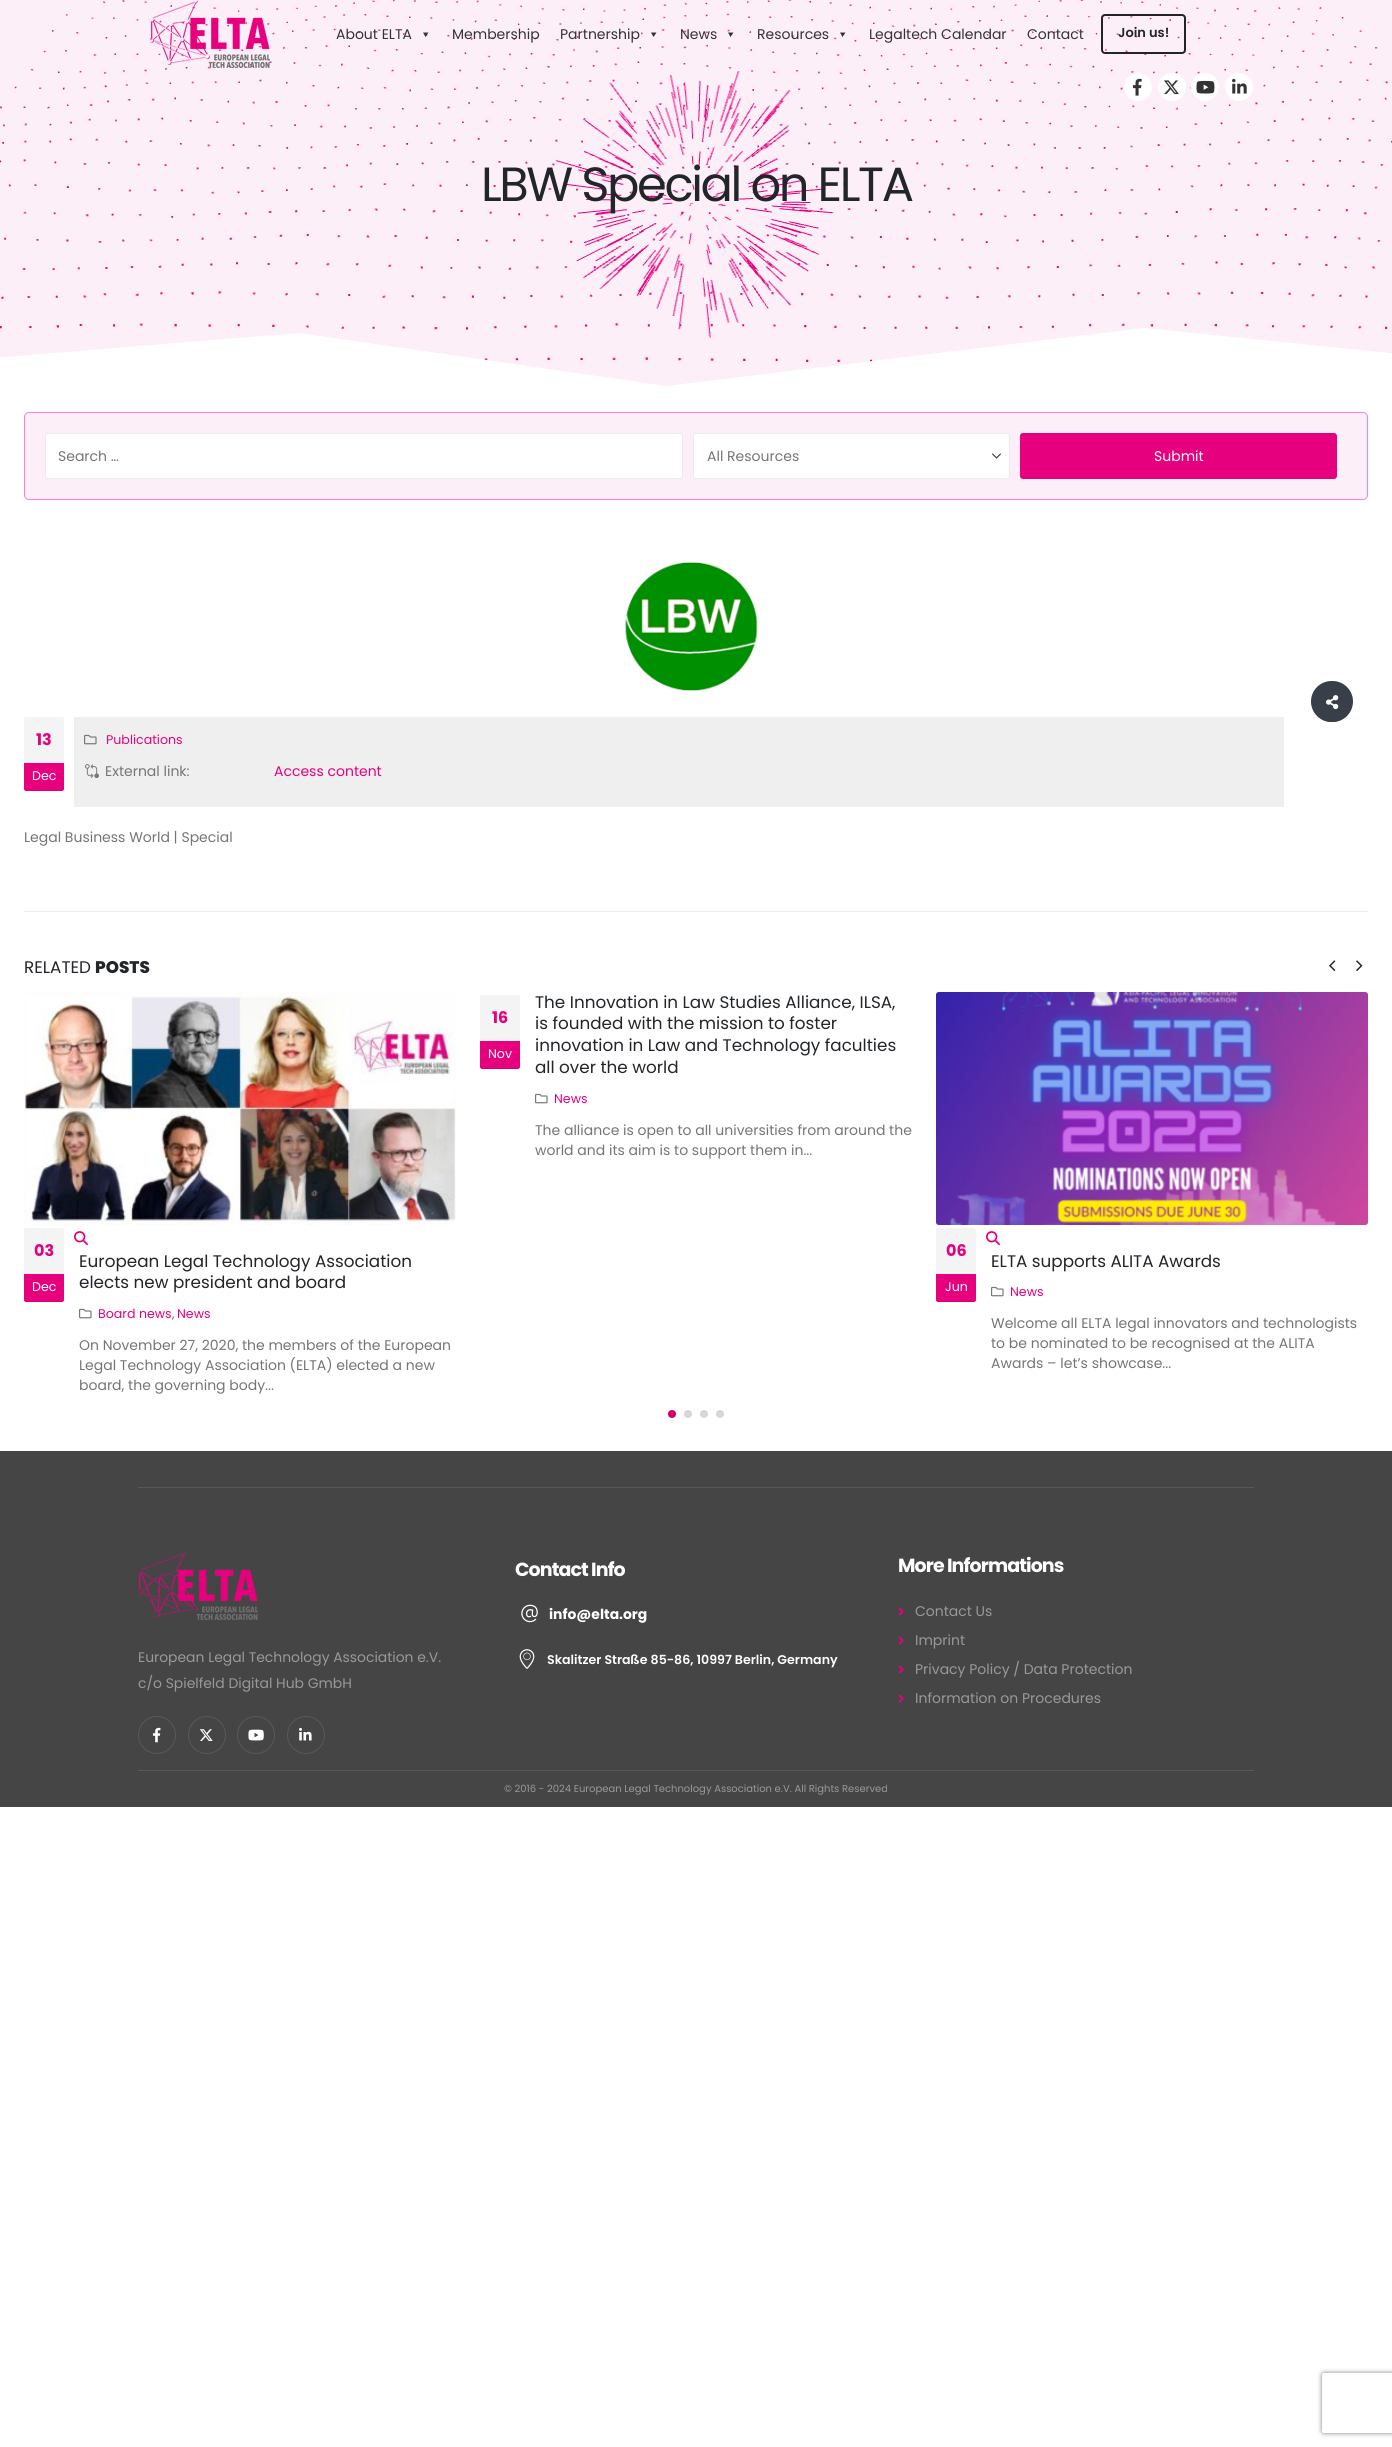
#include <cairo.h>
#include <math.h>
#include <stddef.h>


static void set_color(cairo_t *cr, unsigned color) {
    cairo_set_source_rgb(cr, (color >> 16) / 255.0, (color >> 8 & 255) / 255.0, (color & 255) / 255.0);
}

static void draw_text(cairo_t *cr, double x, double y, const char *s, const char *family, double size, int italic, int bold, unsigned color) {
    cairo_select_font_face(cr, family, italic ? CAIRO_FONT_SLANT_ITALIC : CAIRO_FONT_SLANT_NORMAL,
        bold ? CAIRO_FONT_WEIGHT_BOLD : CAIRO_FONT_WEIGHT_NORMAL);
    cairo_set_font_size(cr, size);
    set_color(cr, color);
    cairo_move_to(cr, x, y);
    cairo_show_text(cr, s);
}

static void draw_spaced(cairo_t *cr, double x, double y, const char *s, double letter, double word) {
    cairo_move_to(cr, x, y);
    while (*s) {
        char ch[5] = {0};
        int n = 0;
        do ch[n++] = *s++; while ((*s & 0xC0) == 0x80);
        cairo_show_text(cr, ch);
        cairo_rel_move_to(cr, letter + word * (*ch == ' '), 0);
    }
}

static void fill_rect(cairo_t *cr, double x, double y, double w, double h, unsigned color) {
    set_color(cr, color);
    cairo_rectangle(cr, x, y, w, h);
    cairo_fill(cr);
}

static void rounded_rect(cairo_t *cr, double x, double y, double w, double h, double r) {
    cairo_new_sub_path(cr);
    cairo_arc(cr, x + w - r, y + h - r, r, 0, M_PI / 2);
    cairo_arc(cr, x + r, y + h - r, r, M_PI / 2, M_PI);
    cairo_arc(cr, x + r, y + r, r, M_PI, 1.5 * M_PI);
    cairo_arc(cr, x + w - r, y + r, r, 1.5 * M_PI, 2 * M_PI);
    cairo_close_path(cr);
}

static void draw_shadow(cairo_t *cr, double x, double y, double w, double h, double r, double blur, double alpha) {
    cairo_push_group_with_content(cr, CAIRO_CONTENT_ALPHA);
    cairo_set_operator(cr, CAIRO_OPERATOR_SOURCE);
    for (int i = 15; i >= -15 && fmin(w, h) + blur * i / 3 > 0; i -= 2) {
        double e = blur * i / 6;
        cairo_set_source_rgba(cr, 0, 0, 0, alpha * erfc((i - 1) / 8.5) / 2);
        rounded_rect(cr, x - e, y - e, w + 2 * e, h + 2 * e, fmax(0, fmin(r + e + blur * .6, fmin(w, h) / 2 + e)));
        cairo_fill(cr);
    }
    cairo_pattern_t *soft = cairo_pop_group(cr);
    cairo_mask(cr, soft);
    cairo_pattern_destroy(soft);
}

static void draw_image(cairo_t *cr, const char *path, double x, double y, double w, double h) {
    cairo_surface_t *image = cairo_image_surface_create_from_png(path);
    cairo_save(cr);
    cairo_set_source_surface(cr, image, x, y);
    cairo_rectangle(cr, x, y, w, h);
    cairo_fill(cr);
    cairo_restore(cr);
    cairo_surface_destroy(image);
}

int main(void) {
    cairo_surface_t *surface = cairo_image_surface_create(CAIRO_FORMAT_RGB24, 1392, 2447);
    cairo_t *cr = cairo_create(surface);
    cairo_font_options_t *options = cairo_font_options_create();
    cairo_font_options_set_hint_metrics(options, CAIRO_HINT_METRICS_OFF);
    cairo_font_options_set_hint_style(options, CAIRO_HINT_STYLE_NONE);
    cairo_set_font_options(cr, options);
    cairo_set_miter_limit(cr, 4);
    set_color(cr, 0xFFFFFF);
    cairo_paint(cr);
    draw_image(cr, "assets/img6.png", 0, 0, 1392, 386);
    draw_image(cr, "assets/img1.png", 150, 0, 120, 68);
    draw_text(cr, 336, 39, "About ELTA", "Poppins", 14, 0, 0, 0x333333);
    cairo_new_path(cr);
    cairo_move_to(cr, 428.5, 32.5);
    cairo_line_to(cr, 425.5, 37);
    cairo_line_to(cr, 423, 32.5);
    cairo_close_path(cr);
    cairo_fill(cr);
    draw_text(cr, 452, 39, "Membership", "Poppins", 14, 0, 0, 0x333333);
    draw_text(cr, 560, 39, "Partnership", "Poppins", 14, 0, 0, 0x333333);
    cairo_new_path(cr);
    cairo_move_to(cr, 656.5, 32.5);
    cairo_line_to(cr, 653.5, 37);
    cairo_line_to(cr, 651, 32.5);
    cairo_close_path(cr);
    cairo_fill(cr);
    draw_text(cr, 680, 39, "News", "Poppins", 14, 0, 0, 0x333333);
    cairo_new_path(cr);
    cairo_move_to(cr, 733.5, 32.5);
    cairo_line_to(cr, 730.5, 37);
    cairo_line_to(cr, 728, 32.5);
    cairo_close_path(cr);
    cairo_fill(cr);
    draw_text(cr, 757, 39, "Resources", "Poppins", 14, 0, 0, 0x333333);
    cairo_new_path(cr);
    cairo_move_to(cr, 845.5, 32.5);
    cairo_line_to(cr, 842.5, 37);
    cairo_line_to(cr, 840, 32.5);
    cairo_close_path(cr);
    cairo_fill(cr);
    draw_text(cr, 869, 39, "Legaltech Calendar", "Poppins", 14, 0, 0, 0x333333);
    draw_text(cr, 1027, 39, "Contact", "Poppins", 14, 0, 0, 0x333333);
    rounded_rect(cr, 1102, 15, 83, 38, 3);
    set_color(cr, 0x212529);
    cairo_stroke(cr);
    draw_text(cr, 1118, 37, "Join us!", "Poppins SemiBold", 13, 0, 0, 0x222529);
    set_color(cr, 0xFFFFFF);
    cairo_new_path(cr);
    cairo_arc(cr, 1138, 87, 14, 0, 2 * M_PI);
    cairo_fill(cr);
    draw_image(cr, "assets/img2.png", 1133, 78, 9, 18);
    cairo_arc(cr, 1172, 87, 14, 0, 2 * M_PI);
    cairo_fill(cr);
    draw_image(cr, "assets/img3.png", 1164, 80, 15, 15);
    cairo_arc(cr, 1205, 87, 14, 0, 2 * M_PI);
    cairo_fill(cr);
    draw_image(cr, "assets/img4.png", 1196, 80, 19, 14);
    cairo_arc(cr, 1239, 87, 14, 0, 2 * M_PI);
    cairo_fill(cr);
    draw_image(cr, "assets/img5.png", 1232, 78, 15, 16);
    cairo_select_font_face(cr, "Poppins", CAIRO_FONT_SLANT_NORMAL, CAIRO_FONT_WEIGHT_NORMAL);
    cairo_set_font_size(cr, 48);
    set_color(cr, 0x222529);
    draw_spaced(cr, 481, 201, "LBW Special on ELTA", -2.4, 0);
    set_color(cr, 0xFFFFFF);
    cairo_new_path(cr);
    cairo_move_to(cr, -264, 330);
    cairo_line_to(cr, -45, 361);
    cairo_line_to(cr, 299, 333);
    cairo_line_to(cr, 666, 386);
    cairo_line_to(cr, 1144, 328);
    cairo_line_to(cr, 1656, 380);
    cairo_line_to(cr, 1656, 406);
    cairo_line_to(cr, -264, 406);
    cairo_close_path(cr);
    cairo_fill(cr);
    set_color(cr, 0xFCEFF8);
    rounded_rect(cr, 24.5, 412.5, 1343, 87, 4.5);
    cairo_fill_preserve(cr);
    set_color(cr, 0xFF84C7);
    cairo_set_line_width(cr, 1);
    cairo_stroke(cr);
    set_color(cr, 0xFFFFFF);
    rounded_rect(cr, 45, 433, 638, 46, 3);
    cairo_fill(cr);
    rounded_rect(cr, 45.5, 433.5, 637, 45, 2.5);
    cairo_set_source_rgba(cr, 0, 0, 0, 0.08);
    cairo_stroke(cr);
    draw_text(cr, 58, 461, "Search …", "Poppins", 14, 0, 0, 0x757575);
    set_color(cr, 0xFFFFFF);
    rounded_rect(cr, 693, 433, 317, 46, 3);
    cairo_fill(cr);
    draw_image(cr, "assets/img7.png", 992, 453, 9, 6);
    rounded_rect(cr, 693.5, 433.5, 316, 45, 2.5);
    cairo_set_source_rgba(cr, 0, 0, 0, 0.08);
    cairo_stroke(cr);
    draw_text(cr, 707, 461, "All Resources", "Poppins", 14, 0, 0, 0x757575);
    set_color(cr, 0xE6007E);
    rounded_rect(cr, 1021.5, 434.5, 314, 43, 1.5);
    cairo_fill_preserve(cr);
    cairo_set_line_width(cr, 3);
    cairo_stroke(cr);
    draw_text(cr, 1154, 461, "Submit", "Poppins", 14, 0, 0, 0xFFFFFF);
    draw_image(cr, "assets/img8.png", 625, 562, 133, 129);
    set_color(cr, 0x383F48);
    rounded_rect(cr, 1311, 681, 42, 41, 20.5);
    cairo_fill(cr);
    cairo_arc(cr, 1332, 702, 20, 0, 2 * M_PI);
    cairo_fill(cr);
    draw_image(cr, "assets/img9.png", 1326, 695, 13, 15);
    set_color(cr, 0xF4F4F4);
    cairo_new_path(cr);
    cairo_move_to(cr, 26, 717);
    cairo_line_to(cr, 62, 717);
    cairo_curve_to(cr, 63, 717, 64, 718, 64, 719);
    cairo_line_to(cr, 64, 763);
    cairo_line_to(cr, 24, 763);
    cairo_line_to(cr, 24, 719);
    cairo_curve_to(cr, 24, 718, 25, 717, 26, 717);
    cairo_close_path(cr);
    cairo_fill(cr);
    draw_text(cr, 36, 745, "13", "Poppins", 16, 0, 1, 0xE6007E);
    cairo_new_path(cr);
    cairo_move_to(cr, 24, 763);
    cairo_line_to(cr, 64, 763);
    cairo_line_to(cr, 64, 789);
    cairo_curve_to(cr, 64, 790, 63, 791, 62, 791);
    cairo_line_to(cr, 26, 791);
    cairo_curve_to(cr, 25, 791, 24, 790, 24, 789);
    cairo_close_path(cr);
    cairo_fill(cr);
    cairo_set_source_rgba(cr, 0, 0, 0, 0.07);
    cairo_new_path(cr);
    cairo_move_to(cr, 24, 788);
    cairo_curve_to(cr, 24, 792, 28, 791, 32, 791);
    cairo_line_to(cr, 56, 791);
    cairo_curve_to(cr, 60, 791, 64, 792, 64, 788);
    cairo_curve_to(cr, 64, 789, 63, 790, 62, 790);
    cairo_line_to(cr, 26, 790);
    cairo_curve_to(cr, 25, 790, 24, 789, 24, 788);
    cairo_close_path(cr);
    cairo_fill(cr);
    draw_text(cr, 32, 780, "Dec", "Poppins", 12.6, 0, 0, 0xFFFFFF);
    fill_rect(cr, 74, 717, 1210, 90, 0xEFEFEF);
    draw_image(cr, "assets/img10.png", 84, 734, 13, 11);
    draw_text(cr, 106, 744, "Publications", "Poppins", 12.6, 0, 0, 0xE6007E);
    draw_image(cr, "assets/img11.png", 85, 764, 14, 15);
    draw_text(cr, 105, 776, "External link:", "Poppins", 14, 0, 0, 0x757575);
    draw_text(cr, 274, 776, "Access content", "Poppins", 14, 0, 0, 0xE6007E);
    draw_text(cr, 24, 842, "Legal Business World | Special", "Poppins", 14, 0, 0, 0x757575);
    fill_rect(cr, 24, 911, 1344, 1, 0xEBEBEB);
    draw_text(cr, 24, 973, "RELATED", "Poppins", 16.8, 0, 0, 0x222529);
    draw_text(cr, 95, 973, "POSTS", "Poppins ExtraBold", 16.8, 0, 0, 0x222529);
    draw_image(cr, "assets/img12.png", 1329, 960, 7, 11);
    draw_image(cr, "assets/img13.png", 1356, 960, 7, 11);
    set_color(cr, 0xF4F4F4);
    cairo_new_path(cr);
    cairo_move_to(cr, 482, 995);
    cairo_line_to(cr, 518, 995);
    cairo_curve_to(cr, 519, 995, 520, 996, 520, 997);
    cairo_line_to(cr, 520, 1041);
    cairo_line_to(cr, 480, 1041);
    cairo_line_to(cr, 480, 997);
    cairo_curve_to(cr, 480, 996, 481, 995, 482, 995);
    cairo_close_path(cr);
    cairo_fill(cr);
    draw_text(cr, 492, 1023, "16", "Poppins", 16, 0, 1, 0xE6007E);
    cairo_new_path(cr);
    cairo_move_to(cr, 480, 1041);
    cairo_line_to(cr, 520, 1041);
    cairo_line_to(cr, 520, 1067);
    cairo_curve_to(cr, 520, 1068, 519, 1069, 518, 1069);
    cairo_line_to(cr, 482, 1069);
    cairo_curve_to(cr, 481, 1069, 480, 1068, 480, 1067);
    cairo_close_path(cr);
    cairo_fill(cr);
    cairo_set_source_rgba(cr, 0, 0, 0, 0.07);
    cairo_new_path(cr);
    cairo_move_to(cr, 480, 1066);
    cairo_curve_to(cr, 480, 1070, 484, 1069, 488, 1069);
    cairo_line_to(cr, 512, 1069);
    cairo_curve_to(cr, 516, 1069, 520, 1070, 520, 1066);
    cairo_curve_to(cr, 520, 1067, 519, 1068, 518, 1068);
    cairo_line_to(cr, 482, 1068);
    cairo_curve_to(cr, 481, 1068, 480, 1067, 480, 1066);
    cairo_close_path(cr);
    cairo_fill(cr);
    draw_text(cr, 488, 1058, "Nov", "Poppins", 12.6, 0, 0, 0xFFFFFF);
    draw_text(cr, 535, 1008, "The Innovation in Law Studies Alliance, ILSA,", "Poppins", 16.8, 0, 0, 0x222529);
    draw_text(cr, 535, 1029, "is founded with the mission to foster", "Poppins", 16.8, 0, 0, 0x222529);
    draw_text(cr, 535, 1051, "innovation in Law and Technology faculties", "Poppins", 16.8, 0, 0, 0x222529);
    draw_text(cr, 535, 1073, "all over the world", "Poppins", 16.8, 0, 0, 0x222529);
    draw_image(cr, "assets/img14.png", 535, 1093, 13, 11);
    draw_text(cr, 554, 1103, "News", "Poppins", 12.6, 0, 0, 0xE6007E);
    draw_text(cr, 535, 1135, "The alliance is open to all universities from around the", "Poppins", 14, 0, 0, 0x757575);
    draw_text(cr, 535, 1155, "world and its aim is to support them in...", "Poppins", 14, 0, 0, 0x757575);
    draw_image(cr, "assets/img15.png", 24, 992, 432, 233);
    draw_image(cr, "assets/img16.png", 74, 1231, 14, 14);
    set_color(cr, 0xF4F4F4);
    cairo_new_path(cr);
    cairo_move_to(cr, 26, 1228);
    cairo_line_to(cr, 62, 1228);
    cairo_curve_to(cr, 63, 1228, 64, 1229, 64, 1230);
    cairo_line_to(cr, 64, 1274);
    cairo_line_to(cr, 24, 1274);
    cairo_line_to(cr, 24, 1230);
    cairo_curve_to(cr, 24, 1229, 25, 1228, 26, 1228);
    cairo_close_path(cr);
    cairo_fill(cr);
    draw_text(cr, 34, 1256, "03", "Poppins", 16, 0, 1, 0xE6007E);
    cairo_new_path(cr);
    cairo_move_to(cr, 24, 1274);
    cairo_line_to(cr, 64, 1274);
    cairo_line_to(cr, 64, 1300);
    cairo_curve_to(cr, 64, 1301, 63, 1302, 62, 1302);
    cairo_line_to(cr, 26, 1302);
    cairo_curve_to(cr, 25, 1302, 24, 1301, 24, 1300);
    cairo_close_path(cr);
    cairo_fill(cr);
    cairo_set_source_rgba(cr, 0, 0, 0, 0.07);
    cairo_new_path(cr);
    cairo_move_to(cr, 24, 1299);
    cairo_curve_to(cr, 24, 1303, 28, 1302, 32, 1302);
    cairo_line_to(cr, 56, 1302);
    cairo_curve_to(cr, 60, 1302, 64, 1303, 64, 1299);
    cairo_curve_to(cr, 64, 1300, 63, 1301, 62, 1301);
    cairo_line_to(cr, 26, 1301);
    cairo_curve_to(cr, 25, 1301, 24, 1300, 24, 1299);
    cairo_close_path(cr);
    cairo_fill(cr);
    draw_text(cr, 32, 1291, "Dec", "Poppins", 12.6, 0, 0, 0xFFFFFF);
    draw_text(cr, 79, 1267, "European Legal Technology Association", "Poppins", 16.8, 0, 0, 0x222529);
    draw_text(cr, 79, 1288, "elects new president and board", "Poppins", 16.8, 0, 0, 0x222529);
    draw_image(cr, "assets/img14.png", 79, 1308, 13, 11);
    draw_text(cr, 98, 1318, "Board news", "Poppins", 12.6, 0, 0, 0xE6007E);
    draw_text(cr, 172, 1318, ",", "Poppins", 12.6, 0, 0, 0x757575);
    draw_text(cr, 177, 1318, "News", "Poppins", 12.6, 0, 0, 0xE6007E);
    draw_text(cr, 79, 1350, "On November 27, 2020, the members of the European", "Poppins", 14, 0, 0, 0x757575);
    draw_text(cr, 79, 1370, "Legal Technology Association (ELTA) elected a new", "Poppins", 14, 0, 0, 0x757575);
    draw_text(cr, 79, 1390, "board, the governing body...", "Poppins", 14, 0, 0, 0x757575);
    draw_image(cr, "assets/img17.png", 936, 992, 432, 233);
    draw_image(cr, "assets/img16.png", 986, 1231, 14, 14);
    set_color(cr, 0xF4F4F4);
    cairo_new_path(cr);
    cairo_move_to(cr, 938, 1228);
    cairo_line_to(cr, 974, 1228);
    cairo_curve_to(cr, 975, 1228, 976, 1229, 976, 1230);
    cairo_line_to(cr, 976, 1274);
    cairo_line_to(cr, 936, 1274);
    cairo_line_to(cr, 936, 1230);
    cairo_curve_to(cr, 936, 1229, 937, 1228, 938, 1228);
    cairo_close_path(cr);
    cairo_fill(cr);
    draw_text(cr, 946, 1256, "06", "Poppins", 16, 0, 1, 0xE6007E);
    cairo_new_path(cr);
    cairo_move_to(cr, 936, 1274);
    cairo_line_to(cr, 976, 1274);
    cairo_line_to(cr, 976, 1300);
    cairo_curve_to(cr, 976, 1301, 975, 1302, 974, 1302);
    cairo_line_to(cr, 938, 1302);
    cairo_curve_to(cr, 937, 1302, 936, 1301, 936, 1300);
    cairo_close_path(cr);
    cairo_fill(cr);
    cairo_set_source_rgba(cr, 0, 0, 0, 0.07);
    cairo_new_path(cr);
    cairo_move_to(cr, 936, 1299);
    cairo_curve_to(cr, 936, 1303, 940, 1302, 944, 1302);
    cairo_line_to(cr, 968, 1302);
    cairo_curve_to(cr, 972, 1302, 976, 1303, 976, 1299);
    cairo_curve_to(cr, 976, 1300, 975, 1301, 974, 1301);
    cairo_line_to(cr, 938, 1301);
    cairo_curve_to(cr, 937, 1301, 936, 1300, 936, 1299);
    cairo_close_path(cr);
    cairo_fill(cr);
    draw_text(cr, 945, 1291, "Jun", "Poppins", 12.6, 0, 0, 0xFFFFFF);
    draw_text(cr, 991, 1267, "ELTA supports ALITA Awards", "Poppins", 16.8, 0, 0, 0x222529);
    draw_image(cr, "assets/img14.png", 991, 1286, 13, 11);
    draw_text(cr, 1010, 1296, "News", "Poppins", 12.6, 0, 0, 0xE6007E);
    draw_text(cr, 991, 1328, "Welcome all ELTA legal innovators and technologists", "Poppins", 14, 0, 0, 0x757575);
    draw_text(cr, 991, 1348, "to be nominated to be recognised at the ALITA", "Poppins", 14, 0, 0, 0x757575);
    draw_text(cr, 991, 1368, "Awards – let’s showcase...", "Poppins", 14, 0, 0, 0x757575);
    set_color(cr, 0xCD0071);
    cairo_new_path(cr);
    cairo_arc(cr, 672, 1414, 4, 0, 2 * M_PI);
    cairo_fill(cr);
    set_color(cr, 0xD6D6D6);
    cairo_arc(cr, 688, 1414, 4, 0, 2 * M_PI);
    cairo_fill(cr);
    cairo_arc(cr, 704, 1414, 4, 0, 2 * M_PI);
    cairo_fill(cr);
    cairo_arc(cr, 720, 1414, 4, 0, 2 * M_PI);
    cairo_fill(cr);
    fill_rect(cr, 0, 1451, 1392, 356, 0x454545);
    fill_rect(cr, 138, 1487, 1116, 1, 0x585858);
    draw_image(cr, "assets/img18.png", 138, 1552, 120, 68);
    draw_text(cr, 138, 1662, "European Legal Technology Association e.V.", "Poppins", 13.9, 0, 0, 0x999999);
    draw_text(cr, 138, 1688, "c/o Spielfeld Digital Hub GmbH", "Poppins", 13.9, 0, 0, 0x999999);
    cairo_new_path(cr);
    cairo_arc(cr, 157, 1735, 18.5, 0, 2 * M_PI);
    set_color(cr, 0x585858);
    cairo_set_line_width(cr, 1);
    cairo_stroke(cr);
    draw_image(cr, "assets/img19.png", 153, 1727, 8, 16);
    cairo_arc(cr, 207, 1735, 18.5, 0, 2 * M_PI);
    cairo_stroke(cr);
    draw_image(cr, "assets/img20.png", 199, 1729, 14, 12);
    cairo_arc(cr, 256, 1735, 18.5, 0, 2 * M_PI);
    cairo_stroke(cr);
    draw_image(cr, "assets/img21.png", 248, 1729, 16, 12);
    cairo_arc(cr, 306, 1735, 18.5, 0, 2 * M_PI);
    cairo_stroke(cr);
    draw_image(cr, "assets/img22.png", 299, 1727, 13, 14);
    cairo_select_font_face(cr, "Poppins", CAIRO_FONT_SLANT_NORMAL, CAIRO_FONT_WEIGHT_BOLD);
    cairo_set_font_size(cr, 19);
    set_color(cr, 0xFFFFFF);
    draw_spaced(cr, 515, 1576, "Contact Info", -0.9, 0);
    draw_image(cr, "assets/img23.png", 521, 1604, 17, 19);
    draw_text(cr, 549, 1619, "info@elta.org", "Poppins", 13.9, 0, 1, 0xFFFFFF);
    draw_image(cr, "assets/img24.png", 519, 1649, 16, 20);
    draw_text(cr, 547, 1664, "Skalitzer Straße 85-86, 10997 Berlin, Germany", "Poppins SemiBold", 12.6, 0, 0, 0xFFFFFF);
    cairo_select_font_face(cr, "Poppins", CAIRO_FONT_SLANT_NORMAL, CAIRO_FONT_WEIGHT_BOLD);
    cairo_set_font_size(cr, 19);
    draw_spaced(cr, 898, 1572, "More Informations", -0.9, 0);
    draw_image(cr, "assets/img25.png", 898, 1607, 6, 9);
    draw_text(cr, 915, 1616, "Contact Us", "Poppins", 14, 0, 0, 0x999999);
    draw_image(cr, "assets/img25.png", 898, 1636, 6, 9);
    draw_text(cr, 915, 1645, "Imprint", "Poppins", 14, 0, 0, 0x999999);
    draw_image(cr, "assets/img25.png", 898, 1665, 6, 9);
    draw_text(cr, 915, 1674, "Privacy Policy / Data Protection", "Poppins", 14, 0, 0, 0x999999);
    draw_image(cr, "assets/img25.png", 898, 1694, 6, 9);
    draw_text(cr, 915, 1703, "Information on Procedures", "Poppins", 14, 0, 0, 0x999999);
    fill_rect(cr, 138, 1770, 1116, 1, 0x585858);
    draw_text(cr, 504, 1792, "© 2016 - 2024 European Legal Technology Association e.V. All Rights Reserved", "Poppins", 10, 0, 0, 0x999999);
    cairo_save(cr);
    cairo_set_fill_rule(cr, CAIRO_FILL_RULE_EVEN_ODD);
    cairo_new_path(cr);
    cairo_move_to(cr, 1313, 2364);
    cairo_line_to(cr, 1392, 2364);
    cairo_line_to(cr, 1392, 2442);
    cairo_line_to(cr, 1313, 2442);
    cairo_close_path(cr);
    cairo_move_to(cr, 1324, 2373);
    cairo_line_to(cr, 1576, 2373);
    cairo_curve_to(cr, 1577, 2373, 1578, 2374, 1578, 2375);
    cairo_line_to(cr, 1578, 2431);
    cairo_curve_to(cr, 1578, 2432, 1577, 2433, 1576, 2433);
    cairo_line_to(cr, 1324, 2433);
    cairo_curve_to(cr, 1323, 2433, 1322, 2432, 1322, 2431);
    cairo_line_to(cr, 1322, 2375);
    cairo_curve_to(cr, 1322, 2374, 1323, 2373, 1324, 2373);
    cairo_close_path(cr);
    cairo_clip(cr);
    set_color(cr, 0x808080);
    draw_shadow(cr, 1322, 2373, 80, 60, 2, 2.5, 1);
    cairo_restore(cr);
    cairo_surface_write_to_png(surface, "output.png");
    cairo_font_options_destroy(options);
    cairo_destroy(cr);
    cairo_surface_destroy(surface);
    return 0;
}
